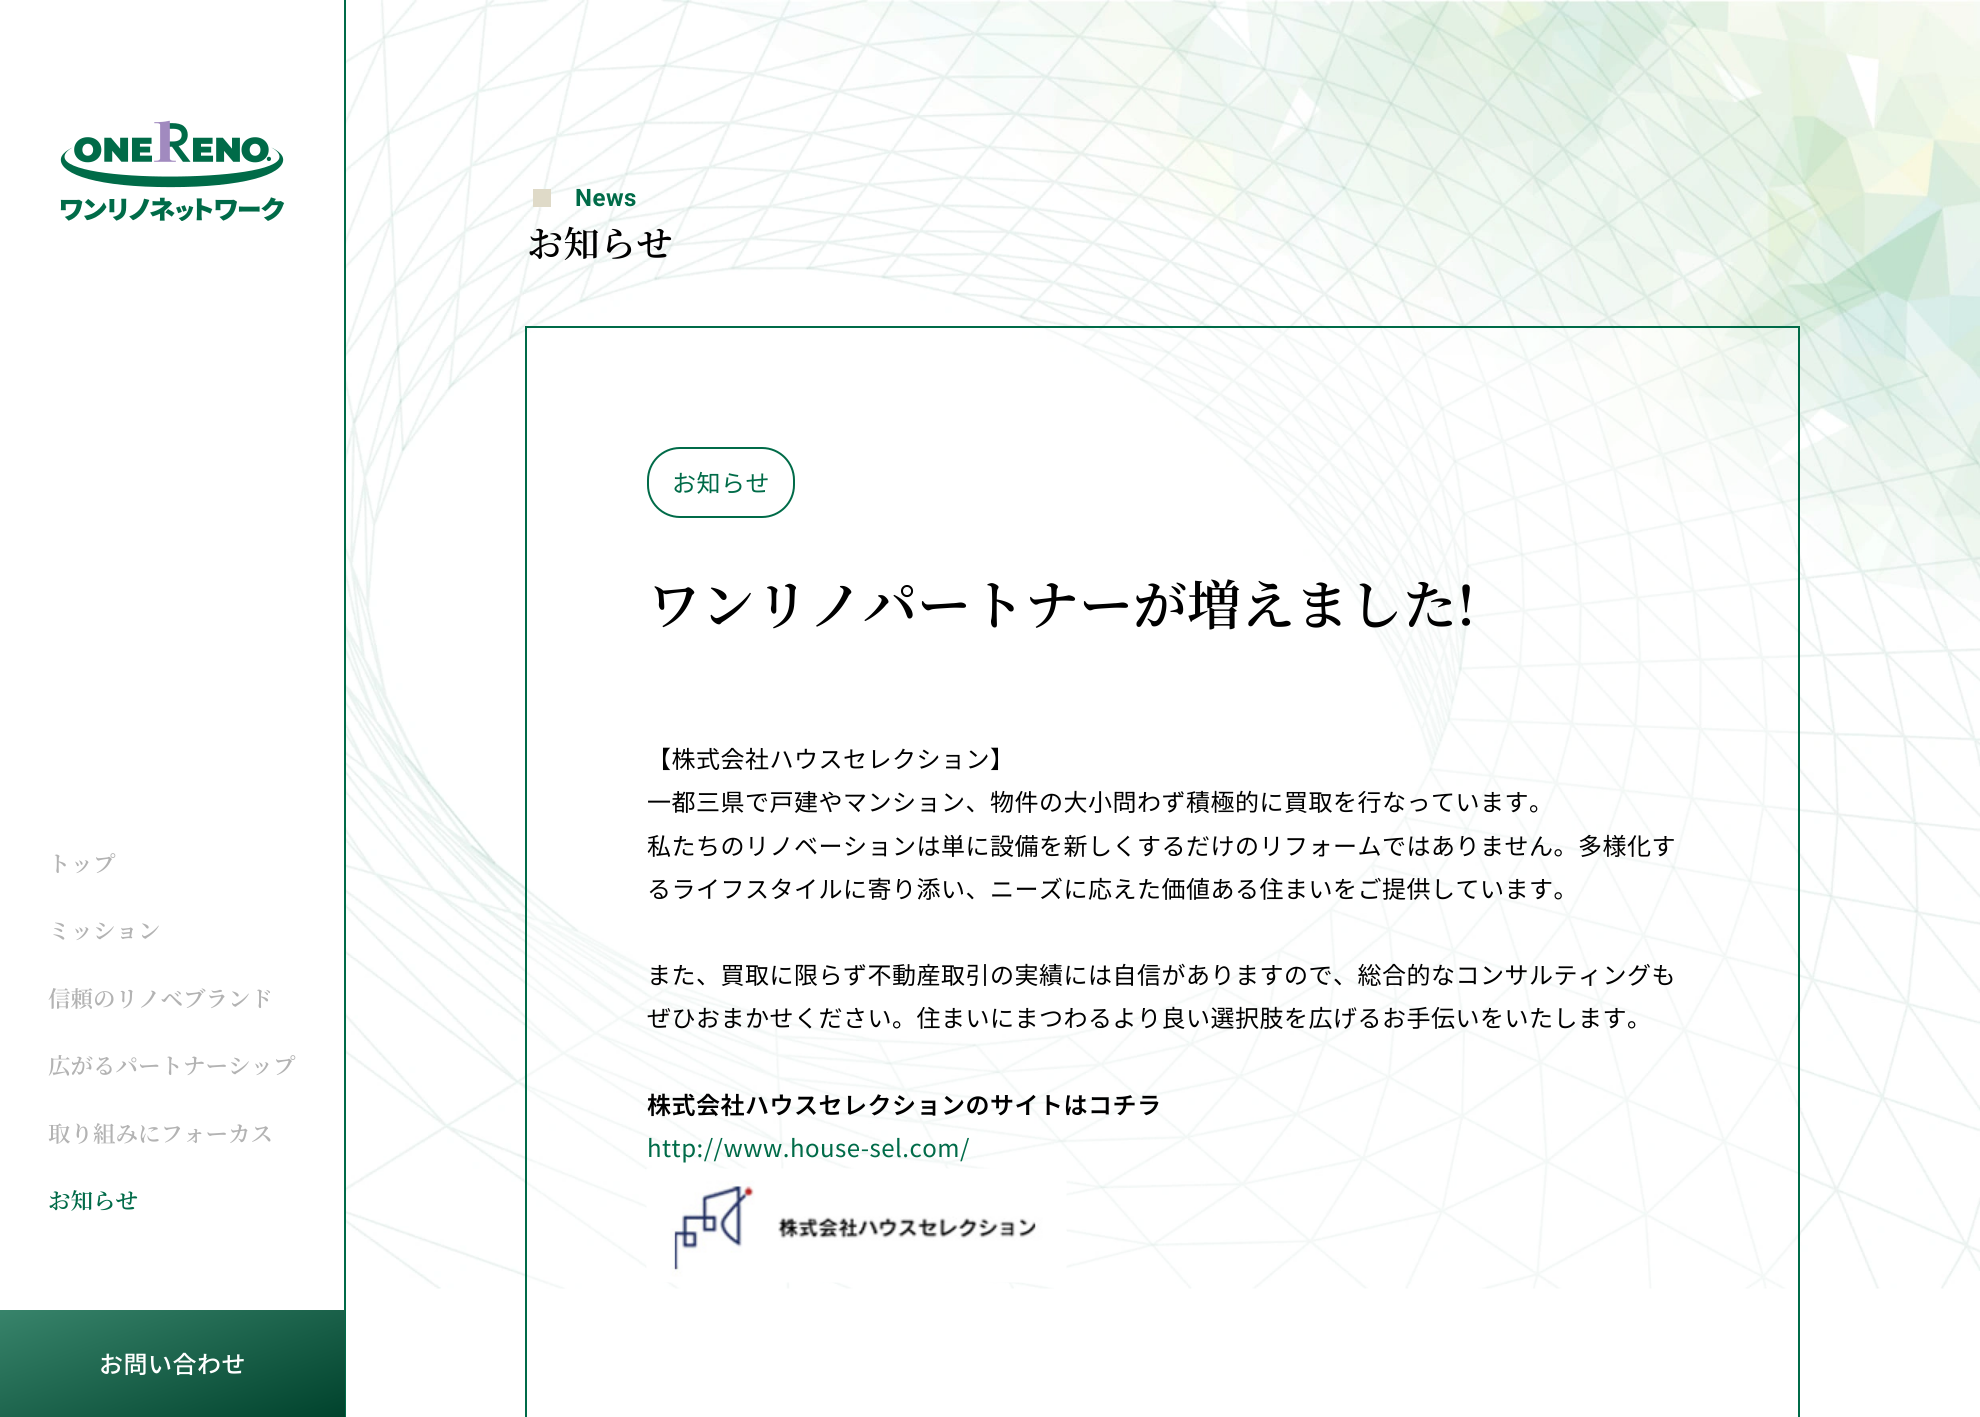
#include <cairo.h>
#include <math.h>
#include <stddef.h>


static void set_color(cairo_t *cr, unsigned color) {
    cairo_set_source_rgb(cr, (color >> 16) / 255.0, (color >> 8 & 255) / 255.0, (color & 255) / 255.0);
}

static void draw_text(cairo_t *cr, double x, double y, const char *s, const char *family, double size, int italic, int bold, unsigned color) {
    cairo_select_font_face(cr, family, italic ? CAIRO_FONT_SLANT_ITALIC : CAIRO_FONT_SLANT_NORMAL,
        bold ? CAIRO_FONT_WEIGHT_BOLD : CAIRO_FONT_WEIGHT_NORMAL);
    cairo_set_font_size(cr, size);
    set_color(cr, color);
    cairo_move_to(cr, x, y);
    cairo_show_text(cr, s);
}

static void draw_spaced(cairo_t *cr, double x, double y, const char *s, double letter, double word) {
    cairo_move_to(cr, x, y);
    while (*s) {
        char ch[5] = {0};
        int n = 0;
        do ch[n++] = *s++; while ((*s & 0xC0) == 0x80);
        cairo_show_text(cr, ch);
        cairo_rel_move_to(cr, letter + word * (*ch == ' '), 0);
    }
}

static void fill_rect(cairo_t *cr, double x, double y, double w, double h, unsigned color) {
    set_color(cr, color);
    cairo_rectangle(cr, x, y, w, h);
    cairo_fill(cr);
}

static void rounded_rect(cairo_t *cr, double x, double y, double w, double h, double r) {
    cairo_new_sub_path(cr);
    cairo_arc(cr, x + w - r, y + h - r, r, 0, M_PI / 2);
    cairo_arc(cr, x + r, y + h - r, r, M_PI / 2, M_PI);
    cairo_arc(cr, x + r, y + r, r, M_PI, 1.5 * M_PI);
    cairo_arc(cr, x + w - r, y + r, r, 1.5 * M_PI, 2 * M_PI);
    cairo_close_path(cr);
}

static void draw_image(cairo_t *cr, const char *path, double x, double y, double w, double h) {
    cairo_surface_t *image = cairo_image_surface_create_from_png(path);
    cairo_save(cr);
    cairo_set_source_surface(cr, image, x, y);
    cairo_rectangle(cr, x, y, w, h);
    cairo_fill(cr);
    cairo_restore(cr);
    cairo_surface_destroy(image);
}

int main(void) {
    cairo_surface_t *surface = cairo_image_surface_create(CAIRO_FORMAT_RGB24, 1980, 1417);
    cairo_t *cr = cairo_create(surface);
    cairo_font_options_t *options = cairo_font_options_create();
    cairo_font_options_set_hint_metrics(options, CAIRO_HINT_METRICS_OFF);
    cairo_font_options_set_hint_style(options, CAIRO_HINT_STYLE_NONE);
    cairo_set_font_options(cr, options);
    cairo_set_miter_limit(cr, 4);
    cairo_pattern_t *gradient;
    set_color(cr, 0xFFFFFF);
    cairo_paint(cr);
    draw_image(cr, "assets/img1.png", 60, 120, 225, 101);
    draw_text(cr, 48, 872, "トップ", "Noto Serif JP SemiBold", 22.5, 0, 0, 0xB3B3B3);
    draw_text(cr, 48, 939, "ミッション", "Noto Serif JP SemiBold", 22.5, 0, 0, 0xB3B3B3);
    draw_text(cr, 48, 1007, "信頼のリノベブランド", "Noto Serif JP SemiBold", 22.5, 0, 0, 0xB3B3B3);
    draw_text(cr, 48, 1074, "広がるパートナーシップ", "Noto Serif JP SemiBold", 22.5, 0, 0, 0xB3B3B3);
    draw_text(cr, 48, 1142, "取り組みにフォーカス", "Noto Serif JP SemiBold", 22.5, 0, 0, 0xB3B3B3);
    draw_text(cr, 48, 1209, "お知らせ", "Noto Serif JP SemiBold", 22.5, 0, 0, 0x006B48);
    fill_rect(cr, 344, 0, 2, 1417, 0x006B48);
    gradient = cairo_pattern_create_linear(135, 1260, 210, 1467);
    cairo_pattern_add_color_stop_rgba(gradient, 0, 0.22, 0.518, 0.42, 1);
    cairo_pattern_add_color_stop_rgba(gradient, 1, 0, 0.259, 0.173, 1);
    cairo_set_source(cr, gradient);
    cairo_pattern_destroy(gradient);
    cairo_rectangle(cr, 0, 1310, 345, 107);
    cairo_fill(cr);
    cairo_select_font_face(cr, "Noto Sans JP Medium", CAIRO_FONT_SLANT_NORMAL, CAIRO_FONT_WEIGHT_NORMAL);
    cairo_set_font_size(cr, 24);
    set_color(cr, 0xFFFFFF);
    draw_spaced(cr, 99, 1373, "お問い合わせ", 0.5, 0);
    draw_image(cr, "assets/img2.png", 346, 0, 1634, 1289);
    fill_rect(cr, 533, 189, 18, 18, 0xDFDAC8);
    cairo_select_font_face(cr, "Roboto", CAIRO_FONT_SLANT_NORMAL, CAIRO_FONT_WEIGHT_BOLD);
    set_color(cr, 0x006B48);
    draw_spaced(cr, 575, 206, "News", 0.5, 0);
    cairo_select_font_face(cr, "Noto Serif JP SemiBold", CAIRO_FONT_SLANT_NORMAL, CAIRO_FONT_WEIGHT_NORMAL);
    cairo_set_font_size(cr, 36);
    set_color(cr, 0x000000);
    draw_spaced(cr, 527, 257, "お知らせ", 0.5, 0);
    cairo_set_source_rgba(cr, 1, 1, 1, 0.4);
    cairo_rectangle(cr, 527, 328, 1271, 961);
    cairo_fill(cr);
    cairo_rectangle(cr, 526, 327, 1273, 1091);
    set_color(cr, 0x006B48);
    cairo_stroke(cr);
    rounded_rect(cr, 648, 448, 146, 69, 32);
    cairo_stroke(cr);
    cairo_select_font_face(cr, "Noto Sans JP", CAIRO_FONT_SLANT_NORMAL, CAIRO_FONT_WEIGHT_NORMAL);
    cairo_set_font_size(cr, 24);
    draw_spaced(cr, 672, 492, "お知らせ", 0.5, 0);
    draw_text(cr, 647, 625, "ワンリノパートナーが増えました!", "Noto Serif JP SemiBold", 54, 0, 0, 0x000000);
    cairo_select_font_face(cr, "Noto Sans JP", CAIRO_FONT_SLANT_NORMAL, CAIRO_FONT_WEIGHT_NORMAL);
    cairo_set_font_size(cr, 24);
    draw_spaced(cr, 647, 768, "【株式会社ハウスセレクション】", 0.5, 0);
    draw_spaced(cr, 647, 811, "一都三県で戸建やマンション、物件の大小問わず積極的に買取を行なっています。", 0.5, 0);
    draw_spaced(cr, 647, 855, "私たちのリノベーションは単に設備を新しくするだけのリフォームではありません。多様化す", 0.5, 0);
    draw_spaced(cr, 647, 898, "るライフスタイルに寄り添い、ニーズに応えた価値ある住まいをご提供しています。", 0.5, 0);
    draw_spaced(cr, 647, 984, "また、買取に限らず不動産取引の実績には自信がありますので、総合的なコンサルティングも", 0.5, 0);
    draw_spaced(cr, 647, 1027, "ぜひおまかせください。住まいにまつわるより良い選択肢を広げるお手伝いをいたします。", 0.5, 0);
    cairo_select_font_face(cr, "Noto Sans JP SemiBold", CAIRO_FONT_SLANT_NORMAL, CAIRO_FONT_WEIGHT_NORMAL);
    draw_spaced(cr, 647, 1114, "株式会社ハウスセレクションのサイトはコチラ", 0.5, 0);
    cairo_select_font_face(cr, "Noto Sans JP", CAIRO_FONT_SLANT_NORMAL, CAIRO_FONT_WEIGHT_NORMAL);
    set_color(cr, 0x006B48);
    draw_spaced(cr, 647, 1157, "http://www.house-sel.com/", 0.5, 0);
    draw_image(cr, "assets/img3.png", 646, 1168, 421, 115);
    cairo_surface_write_to_png(surface, "output.png");
    cairo_font_options_destroy(options);
    cairo_destroy(cr);
    cairo_surface_destroy(surface);
    return 0;
}
